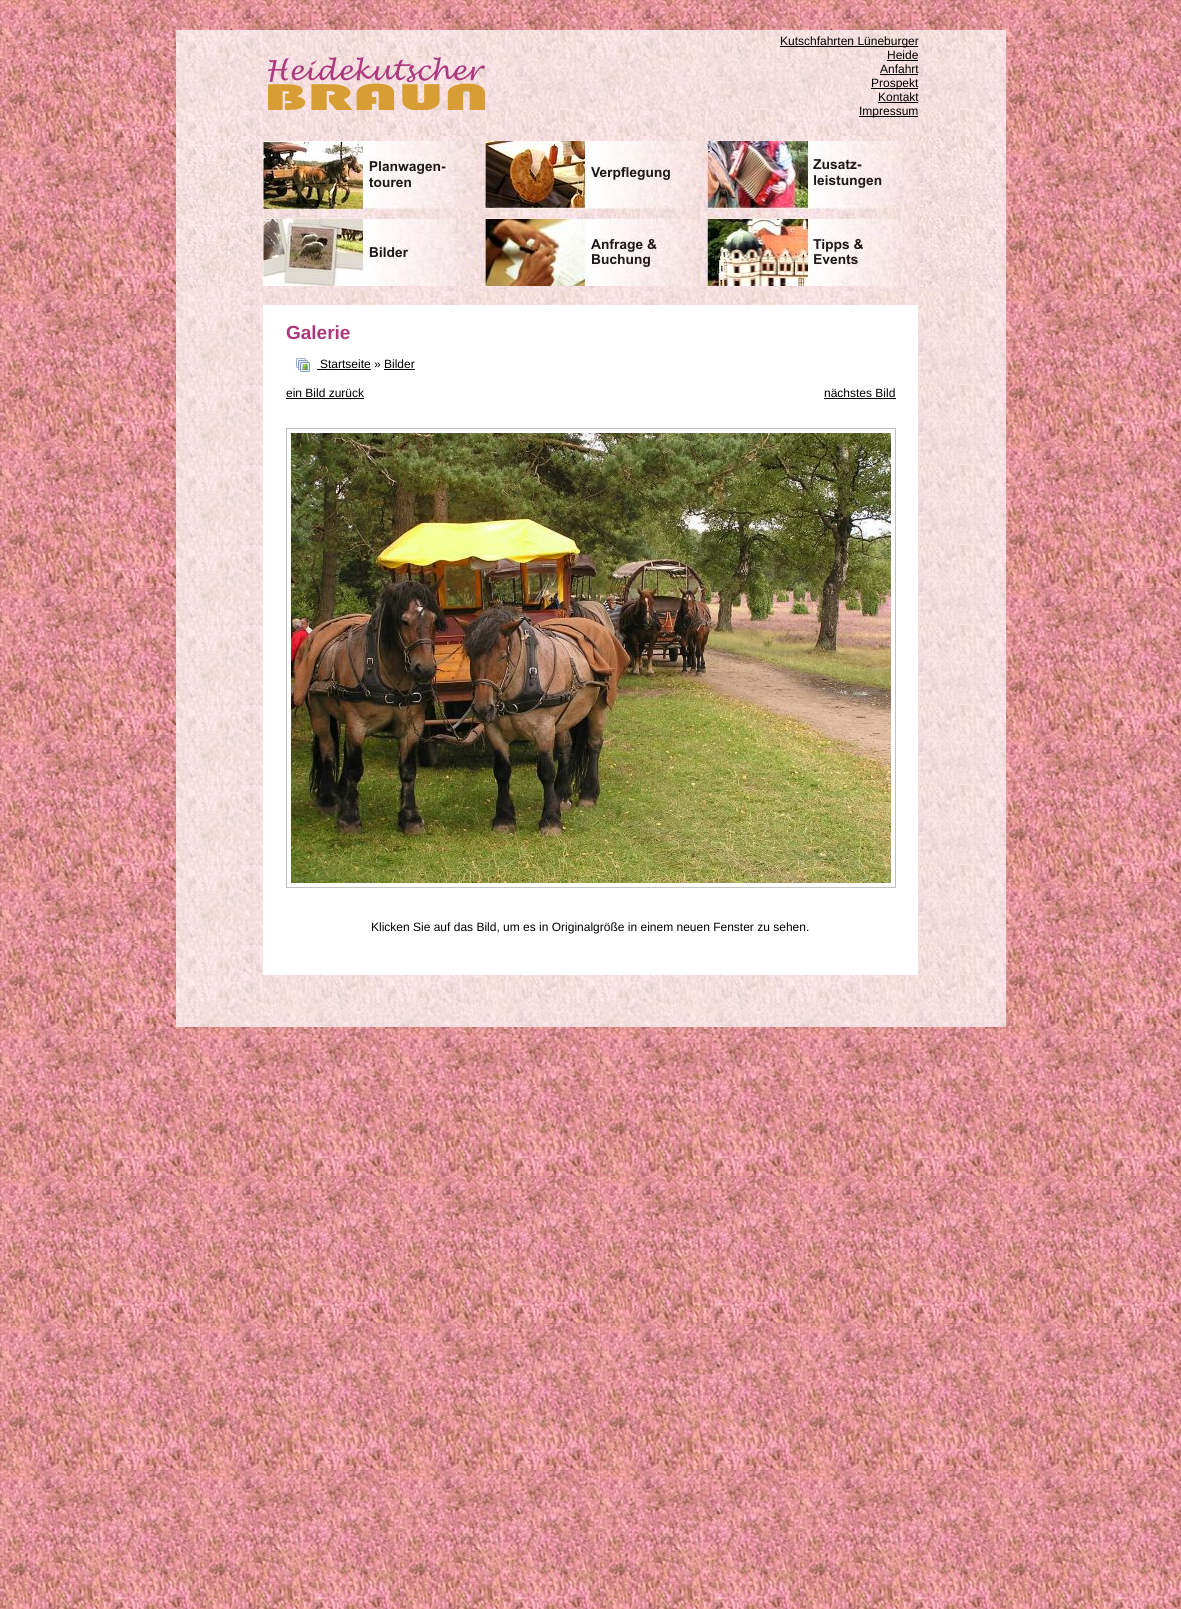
#include <cairo.h>
#include <math.h>
#include <stddef.h>


static void set_color(cairo_t *cr, unsigned color) {
    cairo_set_source_rgb(cr, (color >> 16) / 255.0, (color >> 8 & 255) / 255.0, (color & 255) / 255.0);
}

static void draw_text(cairo_t *cr, double x, double y, const char *s, const char *family, double size, int italic, int bold, unsigned color) {
    cairo_select_font_face(cr, family, italic ? CAIRO_FONT_SLANT_ITALIC : CAIRO_FONT_SLANT_NORMAL,
        bold ? CAIRO_FONT_WEIGHT_BOLD : CAIRO_FONT_WEIGHT_NORMAL);
    cairo_set_font_size(cr, size);
    set_color(cr, color);
    cairo_move_to(cr, x, y);
    cairo_show_text(cr, s);
}

static void fill_rect(cairo_t *cr, double x, double y, double w, double h, unsigned color) {
    set_color(cr, color);
    cairo_rectangle(cr, x, y, w, h);
    cairo_fill(cr);
}

static void draw_image(cairo_t *cr, const char *path, double x, double y, double w, double h) {
    cairo_surface_t *image = cairo_image_surface_create_from_png(path);
    cairo_save(cr);
    cairo_set_source_surface(cr, image, x, y);
    cairo_rectangle(cr, x, y, w, h);
    cairo_fill(cr);
    cairo_restore(cr);
    cairo_surface_destroy(image);
}

int main(void) {
    cairo_surface_t *surface = cairo_image_surface_create(CAIRO_FORMAT_RGB24, 1181, 1609);
    cairo_t *cr = cairo_create(surface);
    cairo_font_options_t *options = cairo_font_options_create();
    cairo_font_options_set_hint_metrics(options, CAIRO_HINT_METRICS_OFF);
    cairo_font_options_set_hint_style(options, CAIRO_HINT_STYLE_NONE);
    cairo_set_font_options(cr, options);
    cairo_set_miter_limit(cr, 4);
    set_color(cr, 0xFFFFFF);
    cairo_paint(cr);
    draw_image(cr, "assets/img1.png", 0, 0, 1181, 1609);
    draw_image(cr, "assets/img2.png", 176, 30, 830, 106);
    draw_image(cr, "assets/img3.png", 268, 56, 218, 54);
    fill_rect(cr, 780, 46, 138, 1, 0x000000);
    draw_text(cr, 780, 45, "Kutschfahrten Lüneburger", "Liberation Sans", 12, 0, 0, 0x000000);
    draw_text(cr, 887, 59, "Heide", "Liberation Sans", 12, 0, 0, 0x000000);
    fill_rect(cr, 887, 60, 31, 1, 0x000000);
    draw_text(cr, 880, 73, "Anfahrt", "Liberation Sans", 12, 0, 0, 0x000000);
    fill_rect(cr, 880, 74, 38, 1, 0x000000);
    fill_rect(cr, 871, 88, 47, 1, 0x000000);
    draw_text(cr, 871, 87, "Prospekt", "Liberation Sans", 12, 0, 0, 0x000000);
    draw_text(cr, 878, 101, "Kontakt", "Liberation Sans", 12, 0, 0, 0x000000);
    fill_rect(cr, 878, 102, 40, 1, 0x000000);
    fill_rect(cr, 859, 116, 59, 1, 0x000000);
    draw_text(cr, 859, 115, "Impressum", "Liberation Sans", 12, 0, 0, 0x000000);
    draw_image(cr, "assets/img4.png", 176, 136, 830, 155);
    draw_image(cr, "assets/img5.png", 263, 141, 656, 145);
    draw_image(cr, "assets/img6.png", 176, 291, 830, 14);
    draw_image(cr, "assets/img7.png", 176, 305, 830, 670);
    fill_rect(cr, 263, 305, 655, 670, 0xFFFFFF);
    draw_text(cr, 286, 339, "Galerie", "Liberation Sans", 19, 0, 1, 0xAA387D);
    draw_image(cr, "assets/img8.png", 296, 358, 14, 14);
    draw_text(cr, 320, 368, "Startseite » Bilder", "Liberation Sans", 12, 0, 0, 0x000000);
    fill_rect(cr, 317, 369, 54, 1, 0x000000);
    fill_rect(cr, 384, 369, 31, 1, 0x000000);
    draw_text(cr, 286, 397, "ein Bild zurück", "Liberation Sans", 12, 0, 0, 0x000000);
    fill_rect(cr, 286, 398, 78, 1, 0x000000);
    draw_text(cr, 824, 397, "nächstes Bild", "Liberation Sans", 12, 0, 0, 0x000000);
    fill_rect(cr, 824, 398, 72, 1, 0x000000);
    cairo_rectangle(cr, 286.5, 428.5, 609, 459);
    set_color(cr, 0xC0C0C0);
    cairo_set_line_width(cr, 1);
    cairo_stroke(cr);
    draw_image(cr, "assets/img9.png", 291, 433, 600, 450);
    draw_text(cr, 371, 931, "Klicken Sie auf das Bild, um es in Originalgröße in einem neuen Fenster zu sehen.", "Liberation Sans", 12, 0, 0, 0x000000);
    draw_image(cr, "assets/img10.png", 176, 975, 830, 52);
    cairo_surface_write_to_png(surface, "output.png");
    cairo_font_options_destroy(options);
    cairo_destroy(cr);
    cairo_surface_destroy(surface);
    return 0;
}
